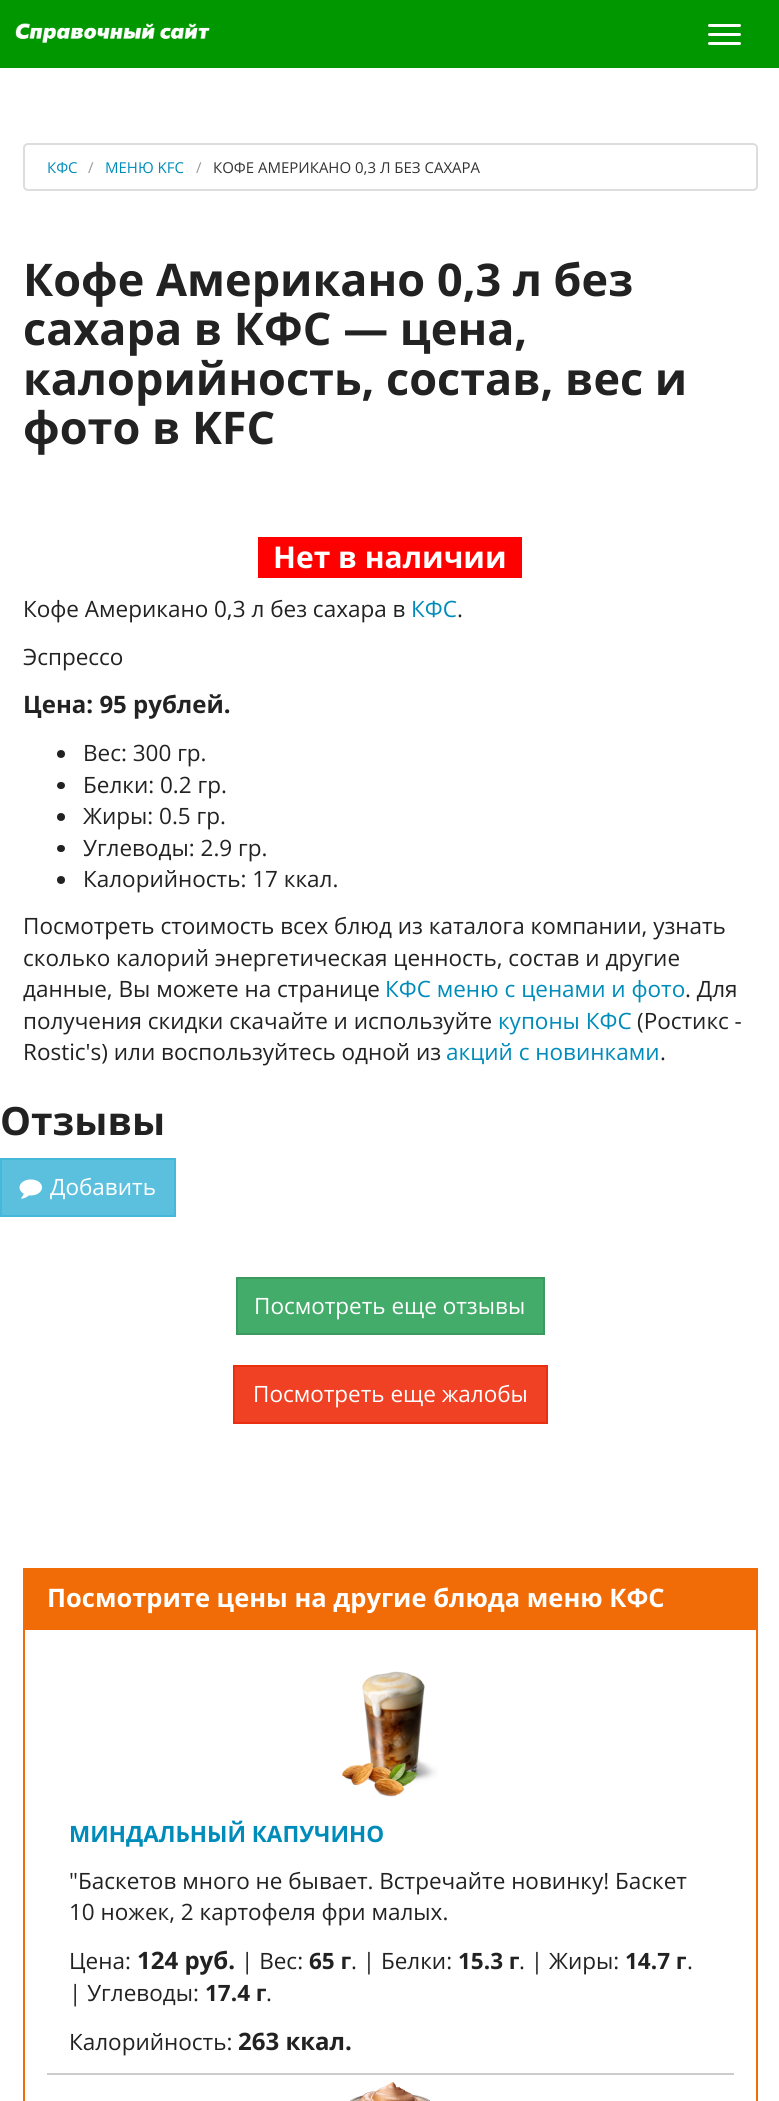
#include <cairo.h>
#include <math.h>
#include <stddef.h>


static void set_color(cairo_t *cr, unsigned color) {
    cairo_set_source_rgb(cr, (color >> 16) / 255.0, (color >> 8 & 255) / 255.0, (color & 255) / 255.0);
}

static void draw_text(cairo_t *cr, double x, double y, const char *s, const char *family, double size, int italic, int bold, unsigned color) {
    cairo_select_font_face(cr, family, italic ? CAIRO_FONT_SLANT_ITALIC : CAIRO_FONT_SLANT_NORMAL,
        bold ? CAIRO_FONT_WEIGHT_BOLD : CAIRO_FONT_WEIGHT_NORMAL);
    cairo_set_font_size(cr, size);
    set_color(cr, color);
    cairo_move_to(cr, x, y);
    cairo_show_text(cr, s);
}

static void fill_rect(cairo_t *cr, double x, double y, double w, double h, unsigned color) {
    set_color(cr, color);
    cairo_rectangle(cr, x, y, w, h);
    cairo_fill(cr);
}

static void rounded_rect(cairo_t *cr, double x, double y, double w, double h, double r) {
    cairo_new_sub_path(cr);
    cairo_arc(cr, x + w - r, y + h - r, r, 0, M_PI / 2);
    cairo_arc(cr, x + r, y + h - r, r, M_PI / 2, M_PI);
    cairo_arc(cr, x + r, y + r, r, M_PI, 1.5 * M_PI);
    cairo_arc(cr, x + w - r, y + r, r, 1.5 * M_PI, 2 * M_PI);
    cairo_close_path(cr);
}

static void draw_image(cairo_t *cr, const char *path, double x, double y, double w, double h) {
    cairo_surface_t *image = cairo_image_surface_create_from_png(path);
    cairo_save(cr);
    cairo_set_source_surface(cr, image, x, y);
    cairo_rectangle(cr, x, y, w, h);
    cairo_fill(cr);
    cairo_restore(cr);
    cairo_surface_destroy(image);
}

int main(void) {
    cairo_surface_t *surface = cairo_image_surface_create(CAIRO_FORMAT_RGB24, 779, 2101);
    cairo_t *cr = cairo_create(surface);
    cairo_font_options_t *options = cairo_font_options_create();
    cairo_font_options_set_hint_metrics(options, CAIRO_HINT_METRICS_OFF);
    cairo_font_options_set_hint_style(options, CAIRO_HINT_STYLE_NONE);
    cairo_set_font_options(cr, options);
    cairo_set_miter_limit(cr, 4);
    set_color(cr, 0xFFFFFF);
    cairo_paint(cr);
    fill_rect(cr, 0, 0, 779, 68, 0x009700);
    draw_image(cr, "assets/img1.png", 15, 23, 195, 20);
    set_color(cr, 0xFFFFFF);
    rounded_rect(cr, 708, 24, 33, 3, 1.5);
    cairo_fill(cr);
    rounded_rect(cr, 708, 33, 33, 3, 1.5);
    cairo_fill(cr);
    rounded_rect(cr, 708, 42, 33, 3, 1.5);
    cairo_fill(cr);
    rounded_rect(cr, 24, 144, 733, 46, 4);
    set_color(cr, 0xDDDDDD);
    cairo_stroke(cr);
    draw_text(cr, 47, 173, "КФС", "Open Sans", 15, 0, 0, 0x008CBA);
    draw_text(cr, 88, 173, "/", "Open Sans", 15, 0, 0, 0x999999);
    draw_text(cr, 105, 173, "МЕНЮ KFC", "Open Sans", 15, 0, 0, 0x008CBA);
    draw_text(cr, 196, 173, "/", "Open Sans", 15, 0, 0, 0x999999);
    draw_text(cr, 213, 173, "КОФЕ АМЕРИКАНО 0,3 Л БЕЗ САХАРА", "Open Sans", 15, 0, 0, 0x333333);
    draw_text(cr, 23, 296, "Кофе Американо 0,3 л без", "Open Sans", 45, 0, 1, 0x222222);
    draw_text(cr, 23, 345, "сахара в КФС — цена,", "Open Sans", 45, 0, 1, 0x222222);
    draw_text(cr, 23, 395, "калорийность, состав, вес и", "Open Sans", 45, 0, 1, 0x222222);
    draw_text(cr, 23, 444, "фото в KFC", "Open Sans", 45, 0, 1, 0x222222);
    fill_rect(cr, 258, 537, 264, 41, 0xFF0000);
    draw_text(cr, 273, 568, "Нет в наличии", "Open Sans", 30, 0, 1, 0xFFFFFF);
    draw_text(cr, 23, 617, "Кофе Американо 0,3 л без сахара в", "Open Sans", 22.5, 0, 0, 0x222222);
    draw_text(cr, 411, 617, "КФС", "Open Sans", 22.5, 0, 0, 0x008CBA);
    draw_text(cr, 457, 617, ".", "Open Sans", 22.5, 0, 0, 0x222222);
    draw_text(cr, 23, 665, "Эспрессо", "Open Sans", 22.5, 0, 0, 0x222222);
    draw_text(cr, 23, 713, "Цена: 95 рублей.", "Open Sans", 24, 0, 1, 0x222222);
    cairo_new_path(cr);
    cairo_arc(cr, 61, 754, 4, 0, 2 * M_PI);
    cairo_fill(cr);
    draw_text(cr, 83, 761, "Вес: 300 гр.", "Open Sans", 22.5, 0, 0, 0x222222);
    rounded_rect(cr, 57, 782, 8, 7, 3.5);
    cairo_fill(cr);
    draw_text(cr, 83, 793, "Белки: 0.2 гр.", "Open Sans", 22.5, 0, 0, 0x222222);
    cairo_new_path(cr);
    cairo_arc(cr, 61, 817, 4, 0, 2 * M_PI);
    cairo_fill(cr);
    draw_text(cr, 83, 824, "Жиры: 0.5 гр.", "Open Sans", 22.5, 0, 0, 0x222222);
    rounded_rect(cr, 57, 845, 8, 7, 3.5);
    cairo_fill(cr);
    draw_text(cr, 83, 856, "Углеводы: 2.9 гр.", "Open Sans", 22.5, 0, 0, 0x222222);
    cairo_new_path(cr);
    cairo_arc(cr, 61, 880, 4, 0, 2 * M_PI);
    cairo_fill(cr);
    draw_text(cr, 83, 887, "Калорийность: 17 ккал.", "Open Sans", 22.5, 0, 0, 0x222222);
    draw_text(cr, 23, 934, "Посмотреть стоимость всех блюд из каталога компании, узнать", "Open Sans", 22.5, 0, 0, 0x222222);
    draw_text(cr, 23, 966, "сколько калорий энергетическая ценность, состав и другие", "Open Sans", 22.5, 0, 0, 0x222222);
    draw_text(cr, 23, 997, "данные, Вы можете на странице", "Open Sans", 22.5, 0, 0, 0x222222);
    draw_text(cr, 385, 997, "КФС меню с ценами и фото", "Open Sans", 22.5, 0, 0, 0x008CBA);
    draw_text(cr, 685, 997, ". Для", "Open Sans", 22.5, 0, 0, 0x222222);
    draw_text(cr, 23, 1029, "получения скидки скачайте и используйте", "Open Sans", 22.5, 0, 0, 0x222222);
    draw_text(cr, 498, 1029, "купоны КФС", "Open Sans", 22.5, 0, 0, 0x008CBA);
    draw_text(cr, 637, 1029, "(Ростикс -", "Open Sans", 22.5, 0, 0, 0x222222);
    draw_text(cr, 23, 1060, "Rostic's) или воспользуйтесь одной из", "Open Sans", 22.5, 0, 0, 0x222222);
    draw_text(cr, 446, 1060, "акций с новинками", "Open Sans", 22.5, 0, 0, 0x008CBA);
    draw_text(cr, 660, 1060, ".", "Open Sans", 22.5, 0, 0, 0x222222);
    draw_text(cr, 0, 1135, "Отзывы", "Open Sans", 39, 0, 1, 0x222222);
    set_color(cr, 0x5BC0DE);
    cairo_rectangle(cr, 1, 1159, 174, 57);
    cairo_fill_preserve(cr);
    set_color(cr, 0x46B8DA);
    cairo_stroke(cr);
    draw_image(cr, "assets/img2.png", 19, 1179, 23, 20);
    draw_text(cr, 50, 1195, "Добавить", "Open Sans", 22.5, 0, 0, 0xFFFFFF);
    set_color(cr, 0x43AC6A);
    cairo_rectangle(cr, 237, 1278, 307, 56);
    cairo_fill_preserve(cr);
    set_color(cr, 0x3C9A5F);
    cairo_stroke(cr);
    draw_text(cr, 254, 1314, "Посмотреть еще отзывы", "Open Sans", 22.5, 0, 0, 0xFFFFFF);
    set_color(cr, 0xF04124);
    cairo_rectangle(cr, 234, 1366, 313, 57);
    cairo_fill_preserve(cr);
    set_color(cr, 0xEA2F10);
    cairo_stroke(cr);
    draw_text(cr, 253, 1402, "Посмотреть еще жалобы", "Open Sans", 22.5, 0, 0, 0xFFFFFF);
    cairo_rectangle(cr, 24, 1569, 733, 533);
    set_color(cr, 0xF16C07);
    cairo_stroke(cr);
    fill_rect(cr, 25, 1570, 731, 58, 0xF16C07);
    fill_rect(cr, 24, 1628, 732, 2, 0xF16C07);
    draw_text(cr, 47, 1607, "Посмотрите цены на другие блюда меню КФС", "Open Sans", 25.5, 0, 1, 0xFFFFFF);
    fill_rect(cr, 47, 2073, 687, 2, 0xCCCCCC);
    draw_image(cr, "assets/img3.png", 341, 1671, 97, 126);
    draw_text(cr, 69, 1842, "МИНДАЛЬНЫЙ КАПУЧИНО", "Open Sans", 22.5, 0, 1, 0x008CBA);
    draw_text(cr, 69, 1889, "\"Баскетов много не бывает. Встречайте новинку! Баскет", "Open Sans", 22.5, 0, 0, 0x222222);
    draw_text(cr, 69, 1920, "10 ножек, 2 картофеля фри малых.", "Open Sans", 22.5, 0, 0, 0x222222);
    draw_text(cr, 69, 1969, "Цена:", "Open Sans", 22.5, 0, 0, 0x222222);
    draw_text(cr, 137, 1969, "124 руб.", "Open Sans", 24, 0, 1, 0x222222);
    draw_text(cr, 241, 1969, "| Вес:", "Open Sans", 22.5, 0, 0, 0x222222);
    draw_text(cr, 309, 1969, "65 г", "Open Sans", 22.5, 0, 1, 0x222222);
    draw_text(cr, 351, 1969, ". | Белки:", "Open Sans", 22.5, 0, 0, 0x222222);
    draw_text(cr, 458, 1969, "15.3 г", "Open Sans", 22.5, 0, 1, 0x222222);
    draw_text(cr, 519, 1969, ". | Жиры:", "Open Sans", 22.5, 0, 0, 0x222222);
    draw_text(cr, 625, 1969, "14.7 г", "Open Sans", 22.5, 0, 1, 0x222222);
    draw_text(cr, 687, 1969, ".", "Open Sans", 22.5, 0, 0, 0x222222);
    draw_text(cr, 69, 2001, "| Углеводы:", "Open Sans", 22.5, 0, 0, 0x222222);
    draw_text(cr, 205, 2001, "17.4 г", "Open Sans", 22.5, 0, 1, 0x222222);
    draw_text(cr, 266, 2001, ".", "Open Sans", 22.5, 0, 0, 0x222222);
    draw_text(cr, 69, 2050, "Калорийность:", "Open Sans", 22.5, 0, 0, 0x222222);
    draw_text(cr, 238, 2050, "263 ккал.", "Open Sans", 24, 0, 1, 0x222222);
    draw_image(cr, "assets/img4.png", 350, 2082, 81, 19);
    cairo_surface_write_to_png(surface, "output.png");
    cairo_font_options_destroy(options);
    cairo_destroy(cr);
    cairo_surface_destroy(surface);
    return 0;
}
